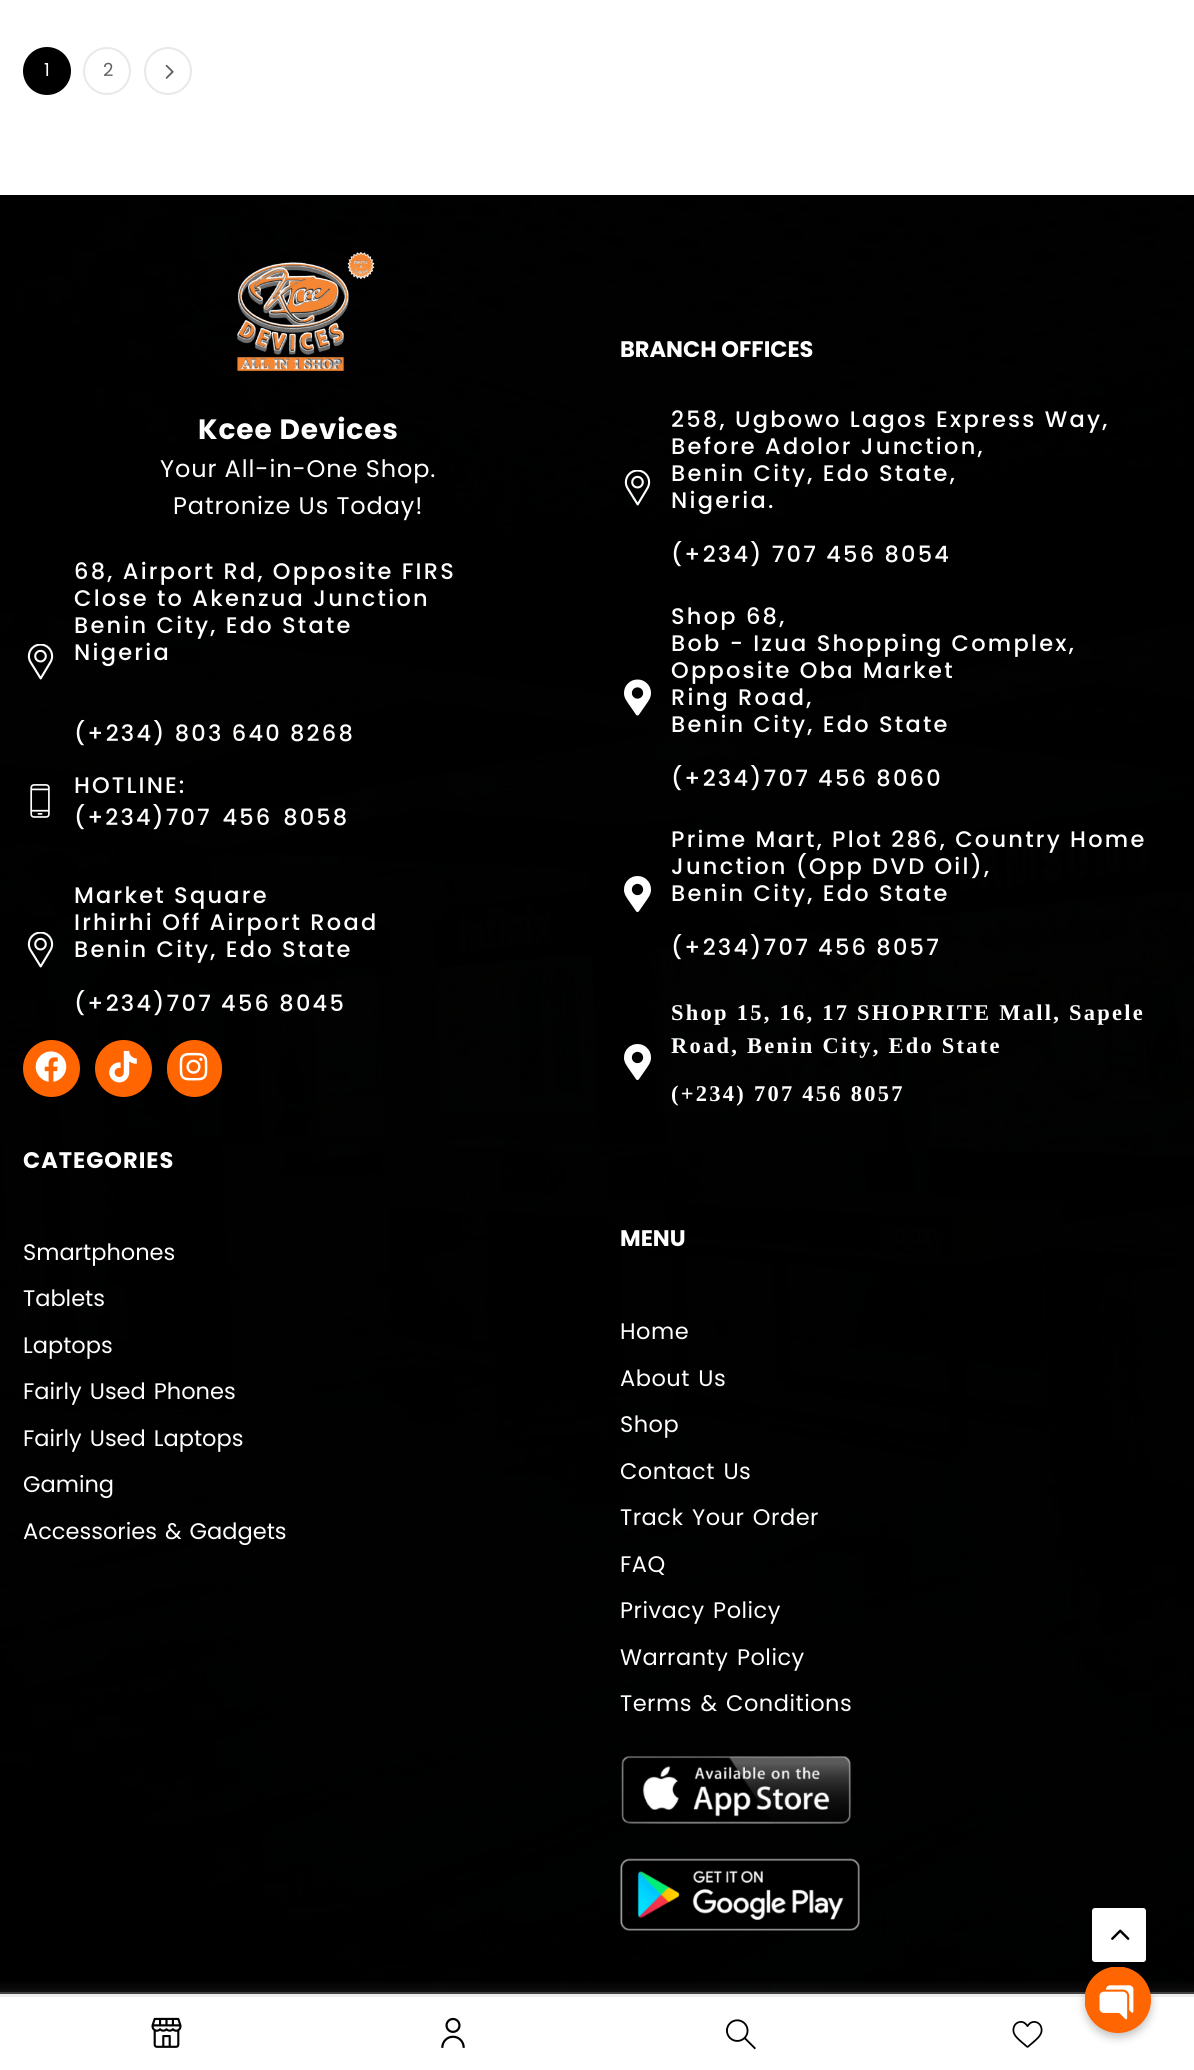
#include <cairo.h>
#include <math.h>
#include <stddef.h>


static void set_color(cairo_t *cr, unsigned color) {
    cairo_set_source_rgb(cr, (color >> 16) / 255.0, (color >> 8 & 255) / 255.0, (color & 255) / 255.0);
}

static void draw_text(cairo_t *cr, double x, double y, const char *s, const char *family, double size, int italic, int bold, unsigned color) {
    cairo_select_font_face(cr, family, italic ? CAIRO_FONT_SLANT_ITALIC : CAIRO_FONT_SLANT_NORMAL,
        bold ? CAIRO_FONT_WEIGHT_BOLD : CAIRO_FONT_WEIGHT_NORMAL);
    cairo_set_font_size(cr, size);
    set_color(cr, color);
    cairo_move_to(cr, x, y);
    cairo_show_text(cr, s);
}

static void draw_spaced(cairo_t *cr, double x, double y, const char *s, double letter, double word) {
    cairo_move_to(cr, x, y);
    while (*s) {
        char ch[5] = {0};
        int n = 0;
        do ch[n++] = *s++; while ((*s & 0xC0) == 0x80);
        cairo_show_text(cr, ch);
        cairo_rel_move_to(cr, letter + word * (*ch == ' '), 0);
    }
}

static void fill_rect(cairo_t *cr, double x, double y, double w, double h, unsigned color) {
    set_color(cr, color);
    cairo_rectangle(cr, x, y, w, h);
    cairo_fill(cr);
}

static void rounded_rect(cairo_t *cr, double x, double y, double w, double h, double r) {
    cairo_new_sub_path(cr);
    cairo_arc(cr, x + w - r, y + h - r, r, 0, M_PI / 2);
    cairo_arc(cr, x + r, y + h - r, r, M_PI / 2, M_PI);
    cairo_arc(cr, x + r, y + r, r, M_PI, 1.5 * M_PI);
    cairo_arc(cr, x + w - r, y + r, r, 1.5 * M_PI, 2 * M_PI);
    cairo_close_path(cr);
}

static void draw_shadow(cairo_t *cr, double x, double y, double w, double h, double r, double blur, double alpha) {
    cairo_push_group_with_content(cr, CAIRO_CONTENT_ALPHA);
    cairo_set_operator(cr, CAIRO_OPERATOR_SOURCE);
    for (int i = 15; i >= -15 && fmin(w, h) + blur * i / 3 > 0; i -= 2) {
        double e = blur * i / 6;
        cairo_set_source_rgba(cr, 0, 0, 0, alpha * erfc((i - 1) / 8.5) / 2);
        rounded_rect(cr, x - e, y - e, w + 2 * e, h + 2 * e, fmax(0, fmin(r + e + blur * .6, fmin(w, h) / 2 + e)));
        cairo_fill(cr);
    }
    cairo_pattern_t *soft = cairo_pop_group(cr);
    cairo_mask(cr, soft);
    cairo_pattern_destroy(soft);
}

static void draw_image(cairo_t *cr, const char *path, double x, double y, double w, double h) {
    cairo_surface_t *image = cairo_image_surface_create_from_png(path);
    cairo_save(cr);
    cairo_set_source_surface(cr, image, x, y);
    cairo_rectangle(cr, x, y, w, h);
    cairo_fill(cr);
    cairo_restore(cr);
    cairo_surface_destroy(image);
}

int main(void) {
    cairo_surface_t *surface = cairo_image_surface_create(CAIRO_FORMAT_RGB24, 1194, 2070);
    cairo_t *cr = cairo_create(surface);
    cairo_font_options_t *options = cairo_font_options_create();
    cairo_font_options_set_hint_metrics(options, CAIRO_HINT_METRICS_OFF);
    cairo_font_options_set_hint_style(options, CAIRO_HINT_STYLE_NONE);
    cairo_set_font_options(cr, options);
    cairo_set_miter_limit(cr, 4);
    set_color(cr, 0xFFFFFF);
    cairo_paint(cr);
    set_color(cr, 0x000000);
    cairo_arc(cr, 47, 71, 23, 0, 2 * M_PI);
    cairo_fill_preserve(cr);
    cairo_stroke(cr);
    draw_text(cr, 44, 76, "1", "Poppins", 18, 0, 0, 0xFFFFFF);
    cairo_new_path(cr);
    cairo_arc(cr, 107, 71, 23, 0, 2 * M_PI);
    set_color(cr, 0xE9E9E9);
    cairo_stroke(cr);
    draw_text(cr, 103, 76, "2", "Poppins", 18, 0, 0, 0x636363);
    cairo_new_path(cr);
    cairo_arc(cr, 168, 71, 23, 0, 2 * M_PI);
    set_color(cr, 0xE9E9E9);
    cairo_stroke(cr);
    draw_image(cr, "assets/img1.png", 165, 64, 9, 15);
    draw_image(cr, "assets/img2.png", 0, 195, 1194, 1797);
    fill_rect(cr, 0, 1992, 1194, 2, 0x373737);
    draw_image(cr, "assets/img3.png", 237, 251, 138, 121);
    cairo_select_font_face(cr, "Poppins", CAIRO_FONT_SLANT_NORMAL, CAIRO_FONT_WEIGHT_BOLD);
    cairo_set_font_size(cr, 28);
    set_color(cr, 0xFFFFFF);
    draw_spaced(cr, 198, 439, "Kcee Devices", 0.9, 0);
    cairo_select_font_face(cr, "Poppins", CAIRO_FONT_SLANT_NORMAL, CAIRO_FONT_WEIGHT_NORMAL);
    cairo_set_font_size(cr, 24);
    draw_spaced(cr, 160, 477, "Your All-in-One Shop.", 0.9, 0);
    draw_spaced(cr, 173, 514, "Patronize Us Today!", 0.9, 0);
    draw_image(cr, "assets/img4.png", 27, 644, 27, 36);
    cairo_select_font_face(cr, "Poppins Medium", CAIRO_FONT_SLANT_NORMAL, CAIRO_FONT_WEIGHT_NORMAL);
    cairo_set_font_size(cr, 22.5);
    draw_spaced(cr, 74, 579, "68, Airport Rd, Opposite FIRS", 2.25, 0);
    draw_spaced(cr, 74, 606, "Close to Akenzua Junction", 2.25, 0);
    draw_spaced(cr, 74, 633, "Benin City, Edo State", 2.25, 0);
    draw_spaced(cr, 74, 660, "Nigeria", 2.25, 0);
    draw_spaced(cr, 74, 741, "(+234) 803 640 8268", 2.25, 0);
    draw_image(cr, "assets/img5.png", 30, 784, 20, 34);
    draw_spaced(cr, 74, 793, "HOTLINE:", 2.1, 0);
    draw_spaced(cr, 74, 825, "(+234)707 456 8058", 2.1, 3);
    draw_image(cr, "assets/img6.png", 27, 932, 27, 36);
    draw_spaced(cr, 74, 903, "Market Square", 2.25, 0);
    draw_spaced(cr, 74, 930, "Irhirhi Off Airport Road", 2.25, 0);
    draw_spaced(cr, 74, 957, "Benin City, Edo State", 2.25, 0);
    draw_spaced(cr, 74, 1011, "(+234)707 456 8045", 2.25, 0);
    set_color(cr, 0xFF6500);
    cairo_new_path(cr);
    cairo_arc(cr, 51.5, 1068.5, 28.5, 0, 2 * M_PI);
    cairo_fill(cr);
    draw_image(cr, "assets/img7.png", 35, 1051, 32, 31);
    cairo_arc(cr, 123.5, 1068.5, 28.5, 0, 2 * M_PI);
    cairo_fill(cr);
    draw_image(cr, "assets/img8.png", 109, 1050, 28, 33);
    rounded_rect(cr, 167, 1040, 55, 57, 27.5);
    cairo_fill(cr);
    draw_image(cr, "assets/img9.png", 179, 1052, 29, 29);
    draw_text(cr, 620, 357, "BRANCH OFFICES", "Poppins", 22.5, 0, 1, 0xFFFFFF);
    draw_image(cr, "assets/img10.png", 624, 470, 27, 36);
    cairo_select_font_face(cr, "Poppins Medium", CAIRO_FONT_SLANT_NORMAL, CAIRO_FONT_WEIGHT_NORMAL);
    draw_spaced(cr, 671, 427, "258, Ugbowo Lagos Express Way,", 2.25, 0);
    draw_spaced(cr, 671, 454, "Before Adolor Junction,", 2.25, 0);
    draw_spaced(cr, 671, 481, "Benin City, Edo State,", 2.25, 0);
    draw_spaced(cr, 671, 508, "Nigeria.", 2.25, 0);
    draw_spaced(cr, 671, 562, "(+234) 707 456 8054", 2.25, 0);
    draw_image(cr, "assets/img11.png", 624, 679, 27, 37);
    draw_spaced(cr, 671, 624, "Shop 68,", 2.25, 0);
    draw_spaced(cr, 671, 651, "Bob - Izua Shopping Complex,", 2.25, 0);
    draw_spaced(cr, 671, 678, "Opposite Oba Market", 2.25, 0);
    draw_spaced(cr, 671, 705, "Ring Road,", 2.25, 0);
    draw_spaced(cr, 671, 732, "Benin City, Edo State", 2.25, 0);
    draw_spaced(cr, 671, 786, "(+234)707 456 8060", 2.25, 0);
    draw_image(cr, "assets/img12.png", 624, 876, 27, 36);
    draw_spaced(cr, 671, 847, "Prime Mart, Plot 286, Country Home", 2.25, 0);
    draw_spaced(cr, 671, 874, "Junction (Opp DVD Oil),", 2.25, 0);
    draw_spaced(cr, 671, 901, "Benin City, Edo State", 2.25, 0);
    draw_spaced(cr, 671, 955, "(+234)707 456 8057", 2.25, 0);
    draw_image(cr, "assets/img13.png", 624, 1044, 27, 36);
    cairo_select_font_face(cr, "Liberation Serif", CAIRO_FONT_SLANT_NORMAL, CAIRO_FONT_WEIGHT_BOLD);
    draw_spaced(cr, 671, 1020, "Shop 15, 16, 17 SHOPRITE Mall, Sapele", 2.25, 0);
    draw_spaced(cr, 671, 1053, "Road, Benin City, Edo State", 2.25, 0);
    draw_spaced(cr, 671, 1101, "(+234) 707 456 8057", 2.25, 0);
    cairo_select_font_face(cr, "Poppins", CAIRO_FONT_SLANT_NORMAL, CAIRO_FONT_WEIGHT_BOLD);
    draw_spaced(cr, 23, 1168, "CATEGORIES", 1, 0);
    draw_text(cr, 23, 1260, "Smartphones", "Poppins", 22.5, 0, 0, 0xFFFFFF);
    draw_text(cr, 23, 1306, "Tablets", "Poppins", 22.5, 0, 0, 0xFFFFFF);
    draw_text(cr, 23, 1353, "Laptops", "Poppins", 22.5, 0, 0, 0xFFFFFF);
    draw_spaced(cr, 23, 1399, "Fairly Used Phones", 0, 2);
    draw_spaced(cr, 23, 1446, "Fairly Used Laptops", 0, 2);
    draw_text(cr, 23, 1492, "Gaming", "Poppins", 22.5, 0, 0, 0xFFFFFF);
    draw_spaced(cr, 23, 1539, "Accessories & Gadgets", 0, 2);
    draw_text(cr, 620, 1246, "MENU", "Poppins", 22.5, 0, 1, 0xFFFFFF);
    cairo_select_font_face(cr, "Poppins", CAIRO_FONT_SLANT_NORMAL, CAIRO_FONT_WEIGHT_NORMAL);
    draw_spaced(cr, 620, 1339, "Home", 0.5, 0);
    draw_spaced(cr, 620, 1386, "About Us", 0.5, 2);
    draw_spaced(cr, 620, 1432, "Shop", 0.5, 0);
    draw_spaced(cr, 620, 1479, "Contact Us", 0.5, 2);
    draw_spaced(cr, 620, 1525, "Track Your Order", 0.5, 2);
    draw_spaced(cr, 620, 1572, "FAQ", 0.5, 0);
    draw_spaced(cr, 620, 1618, "Privacy Policy", 0.5, 2);
    draw_spaced(cr, 620, 1665, "Warranty Policy", 0.5, 2);
    draw_spaced(cr, 620, 1711, "Terms & Conditions", 0.5, 2);
    draw_image(cr, "assets/img14.png", 621, 1756, 231, 68);
    draw_image(cr, "assets/img15.png", 620, 1858, 240, 73);
    cairo_save(cr);
    cairo_rectangle(cr, 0, 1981, 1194, 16);
    cairo_clip(cr);
    set_color(cr, 0x909090);
    draw_shadow(cr, -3, 1995, 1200, 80, 0, 9, 0.3);
    cairo_restore(cr);
    draw_image(cr, "assets/img16.png", 151, 2017, 31, 31);
    draw_image(cr, "assets/img17.png", 441, 2017, 24, 31);
    draw_image(cr, "assets/img18.png", 726, 2019, 30, 31);
    draw_image(cr, "assets/img19.png", 1012, 2021, 31, 27);
    rounded_rect(cr, 1090.5, 1906.5, 57, 57, 4.5);
    cairo_fill_preserve(cr);
    set_color(cr, 0x000000);
    cairo_set_line_width(cr, 3);
    cairo_stroke(cr);
    draw_image(cr, "assets/img20.png", 1111, 1929, 19, 11);
    set_color(cr, 0x000000);
    draw_shadow(cr, 1085, 1971, 66, 66, 33, 4.5, 0.25);
    set_color(cr, 0xFF6500);
    cairo_arc(cr, 1118, 2000, 33, 0, 2 * M_PI);
    cairo_fill(cr);
    draw_image(cr, "assets/img21.png", 1085, 1967, 66, 66);
    cairo_surface_write_to_png(surface, "output.png");
    cairo_font_options_destroy(options);
    cairo_destroy(cr);
    cairo_surface_destroy(surface);
    return 0;
}
